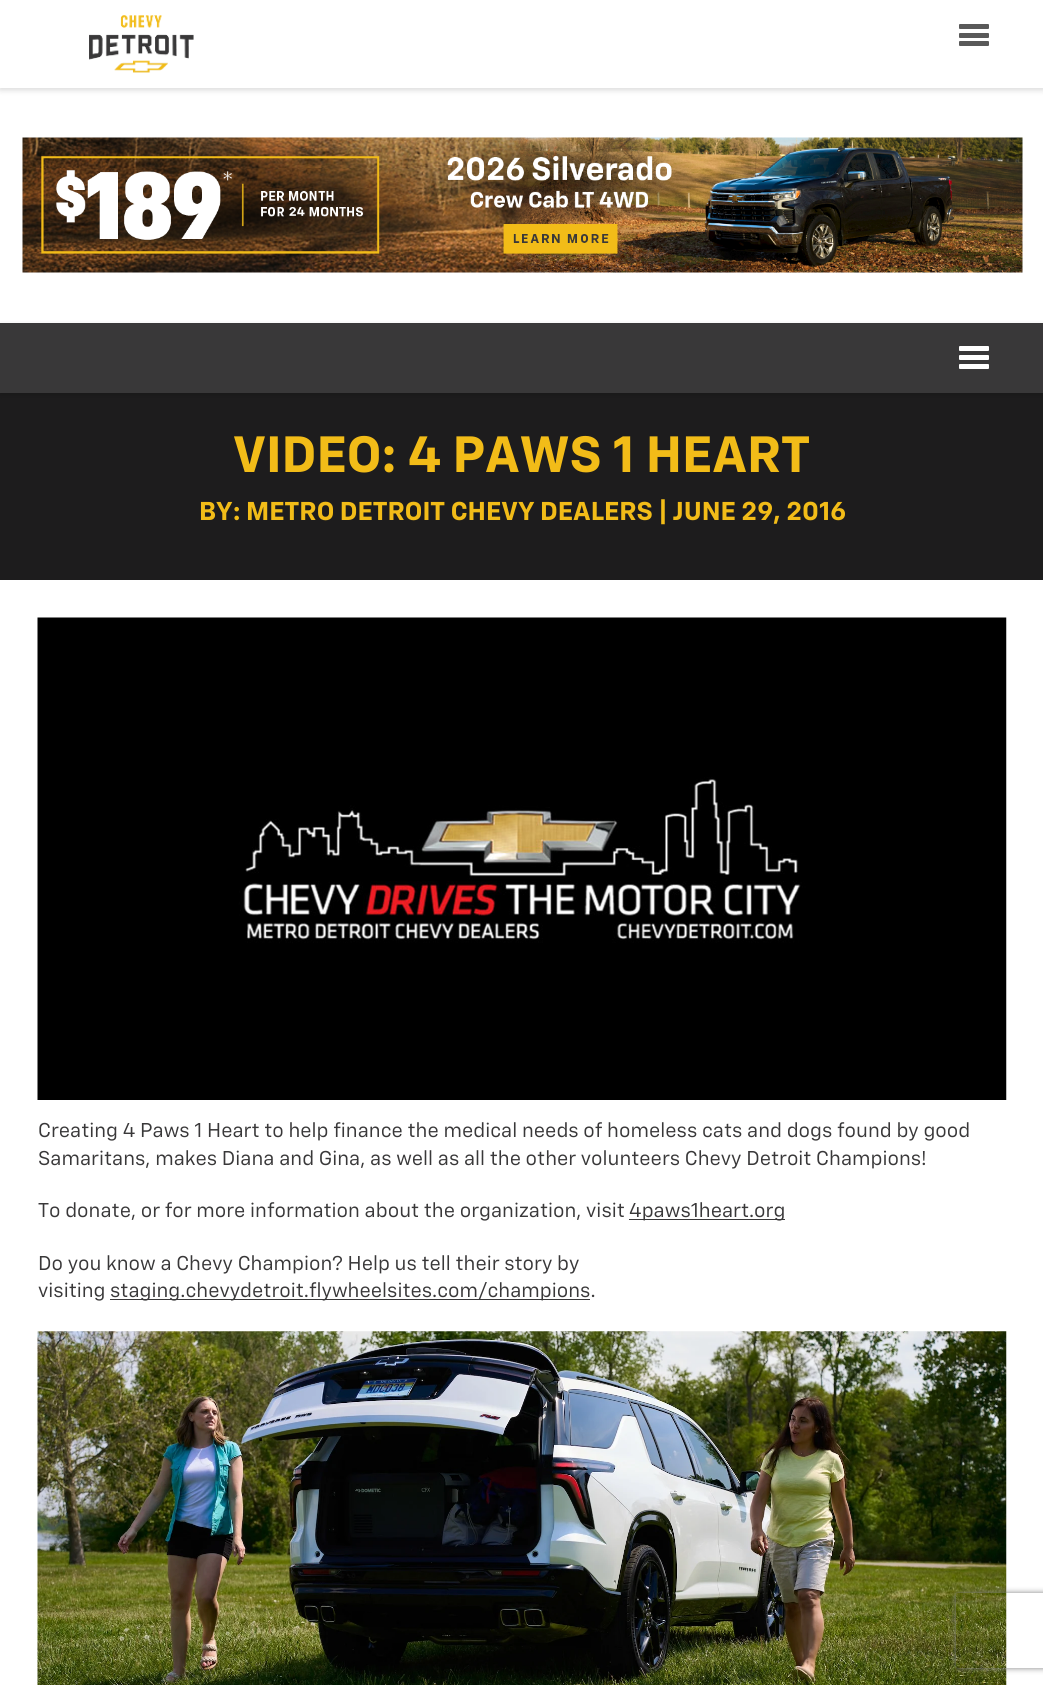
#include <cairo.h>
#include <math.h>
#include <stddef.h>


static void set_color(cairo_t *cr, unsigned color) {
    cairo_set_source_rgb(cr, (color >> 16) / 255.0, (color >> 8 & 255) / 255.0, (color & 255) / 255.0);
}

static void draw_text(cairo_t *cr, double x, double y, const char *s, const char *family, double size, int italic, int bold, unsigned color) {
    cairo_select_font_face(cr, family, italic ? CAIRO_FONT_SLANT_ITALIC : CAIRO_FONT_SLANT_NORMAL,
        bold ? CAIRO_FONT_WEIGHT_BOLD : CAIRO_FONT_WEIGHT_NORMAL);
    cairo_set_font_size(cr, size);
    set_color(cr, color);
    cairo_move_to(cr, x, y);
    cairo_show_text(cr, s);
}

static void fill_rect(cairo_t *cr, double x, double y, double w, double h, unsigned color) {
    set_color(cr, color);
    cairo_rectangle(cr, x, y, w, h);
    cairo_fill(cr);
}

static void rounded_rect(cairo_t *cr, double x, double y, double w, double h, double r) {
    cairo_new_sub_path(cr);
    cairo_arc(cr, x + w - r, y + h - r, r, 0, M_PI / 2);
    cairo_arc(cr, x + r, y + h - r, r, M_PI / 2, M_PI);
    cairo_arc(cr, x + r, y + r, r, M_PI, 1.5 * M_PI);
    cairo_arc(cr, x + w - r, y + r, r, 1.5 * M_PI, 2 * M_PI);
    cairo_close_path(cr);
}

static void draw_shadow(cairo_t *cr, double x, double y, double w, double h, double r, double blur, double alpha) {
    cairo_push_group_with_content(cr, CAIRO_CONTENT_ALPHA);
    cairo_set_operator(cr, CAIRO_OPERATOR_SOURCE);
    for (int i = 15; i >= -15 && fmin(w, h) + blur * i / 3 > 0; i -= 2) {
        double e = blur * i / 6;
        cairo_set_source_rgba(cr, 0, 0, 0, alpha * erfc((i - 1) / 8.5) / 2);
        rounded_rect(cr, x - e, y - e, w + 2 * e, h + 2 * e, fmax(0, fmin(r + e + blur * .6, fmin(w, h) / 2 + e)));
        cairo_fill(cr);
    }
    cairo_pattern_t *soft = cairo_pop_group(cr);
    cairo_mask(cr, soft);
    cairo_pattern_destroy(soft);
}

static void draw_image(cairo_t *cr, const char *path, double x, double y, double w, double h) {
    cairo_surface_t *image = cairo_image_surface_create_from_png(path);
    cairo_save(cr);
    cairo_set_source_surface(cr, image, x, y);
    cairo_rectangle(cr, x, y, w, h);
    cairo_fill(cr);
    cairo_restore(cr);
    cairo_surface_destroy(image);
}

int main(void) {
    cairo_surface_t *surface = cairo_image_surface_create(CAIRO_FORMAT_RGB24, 1043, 1685);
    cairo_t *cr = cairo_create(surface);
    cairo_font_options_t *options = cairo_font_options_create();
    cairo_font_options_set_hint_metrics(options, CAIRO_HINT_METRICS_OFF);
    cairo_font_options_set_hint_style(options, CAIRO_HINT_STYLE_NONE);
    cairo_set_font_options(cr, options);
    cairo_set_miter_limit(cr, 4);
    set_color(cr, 0xFFFFFF);
    cairo_paint(cr);
    set_color(cr, 0x000000);
    draw_shadow(cr, 0, 3, 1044, 87, 0, 3, 0.15);
    fill_rect(cr, 0, 0, 1043, 88, 0xFFFFFF);
    draw_image(cr, "assets/img1.png", 89, 15, 105, 58);
    set_color(cr, 0x595959);
    rounded_rect(cr, 959, 24, 30, 5, 1);
    cairo_fill(cr);
    rounded_rect(cr, 959, 33, 30, 5, 1);
    cairo_fill(cr);
    rounded_rect(cr, 959, 41, 30, 5, 1);
    cairo_fill(cr);
    draw_image(cr, "assets/img2.png", 22, 137, 1001, 136);
    fill_rect(cr, 0, 393, 1043, 187, 0x1D1C1D);
    set_color(cr, 0x000000);
    draw_shadow(cr, 0, 325, 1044, 70, 0, 3, 0.15);
    fill_rect(cr, 0, 323, 1043, 70, 0x393839);
    set_color(cr, 0xFFFFFF);
    rounded_rect(cr, 959, 346, 30, 5, 1);
    cairo_fill(cr);
    rounded_rect(cr, 959, 355, 30, 5, 1);
    cairo_fill(cr);
    rounded_rect(cr, 959, 364, 30, 5, 1);
    cairo_fill(cr);
    draw_text(cr, 233, 472, "VIDEO: 4 PAWS 1 HEART", "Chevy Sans", 50.9, 0, 1, 0xF2BC18);
    draw_text(cr, 199, 520, "BY: METRO DETROIT CHEVY DEALERS | JUNE 29, 2016", "Chevy Sans", 25.8, 0, 1, 0xF2BC18);
    draw_image(cr, "assets/img3.png", 37, 617, 970, 483);
    draw_text(cr, 38, 1137, "Creating 4 Paws 1 Heart to help finance the medical needs of homeless cats and dogs found by good", "Chevy Sans", 20, 0, 0, 0x393839);
    draw_text(cr, 38, 1165, "Samaritans, makes Diana and Gina, as well as all the other volunteers Chevy Detroit Champions!", "Chevy Sans", 20, 0, 0, 0x393839);
    draw_text(cr, 38, 1217, "To donate, or for more information about the organization, visit", "Chevy Sans", 20, 0, 0, 0x393839);
    fill_rect(cr, 629, 1219, 156, 1, 0x393839);
    draw_text(cr, 629, 1217, "4paws1heart.org", "Chevy Sans", 20, 0, 0, 0x393839);
    draw_text(cr, 38, 1270, "Do you know a Chevy Champion? Help us tell their story by", "Chevy Sans", 20, 0, 0, 0x393839);
    draw_text(cr, 38, 1297, "visiting", "Chevy Sans", 20, 0, 0, 0x393839);
    fill_rect(cr, 110, 1299, 480, 1, 0x393839);
    draw_text(cr, 110, 1297, "staging.chevydetroit.flywheelsites.com/champions.", "Chevy Sans", 20, 0, 0, 0x393839);
    draw_image(cr, "assets/img4.png", 37, 1331, 970, 354);
    cairo_save(cr);
    cairo_set_fill_rule(cr, CAIRO_FILL_RULE_EVEN_ODD);
    cairo_new_path(cr);
    cairo_move_to(cr, 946, 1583);
    cairo_line_to(cr, 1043, 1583);
    cairo_line_to(cr, 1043, 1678);
    cairo_line_to(cr, 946, 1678);
    cairo_close_path(cr);
    cairo_move_to(cr, 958.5, 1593);
    cairo_line_to(cr, 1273.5, 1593);
    cairo_curve_to(cr, 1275, 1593, 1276, 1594, 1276, 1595.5);
    cairo_line_to(cr, 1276, 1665.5);
    cairo_curve_to(cr, 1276, 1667, 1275, 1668, 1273.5, 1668);
    cairo_line_to(cr, 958.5, 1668);
    cairo_curve_to(cr, 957, 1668, 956, 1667, 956, 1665.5);
    cairo_line_to(cr, 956, 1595.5);
    cairo_curve_to(cr, 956, 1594, 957, 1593, 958.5, 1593);
    cairo_close_path(cr);
    cairo_clip(cr);
    set_color(cr, 0x808080);
    draw_shadow(cr, 956, 1593, 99, 75, 2.5, 3, 1);
    cairo_restore(cr);
    cairo_surface_write_to_png(surface, "output.png");
    cairo_font_options_destroy(options);
    cairo_destroy(cr);
    cairo_surface_destroy(surface);
    return 0;
}
